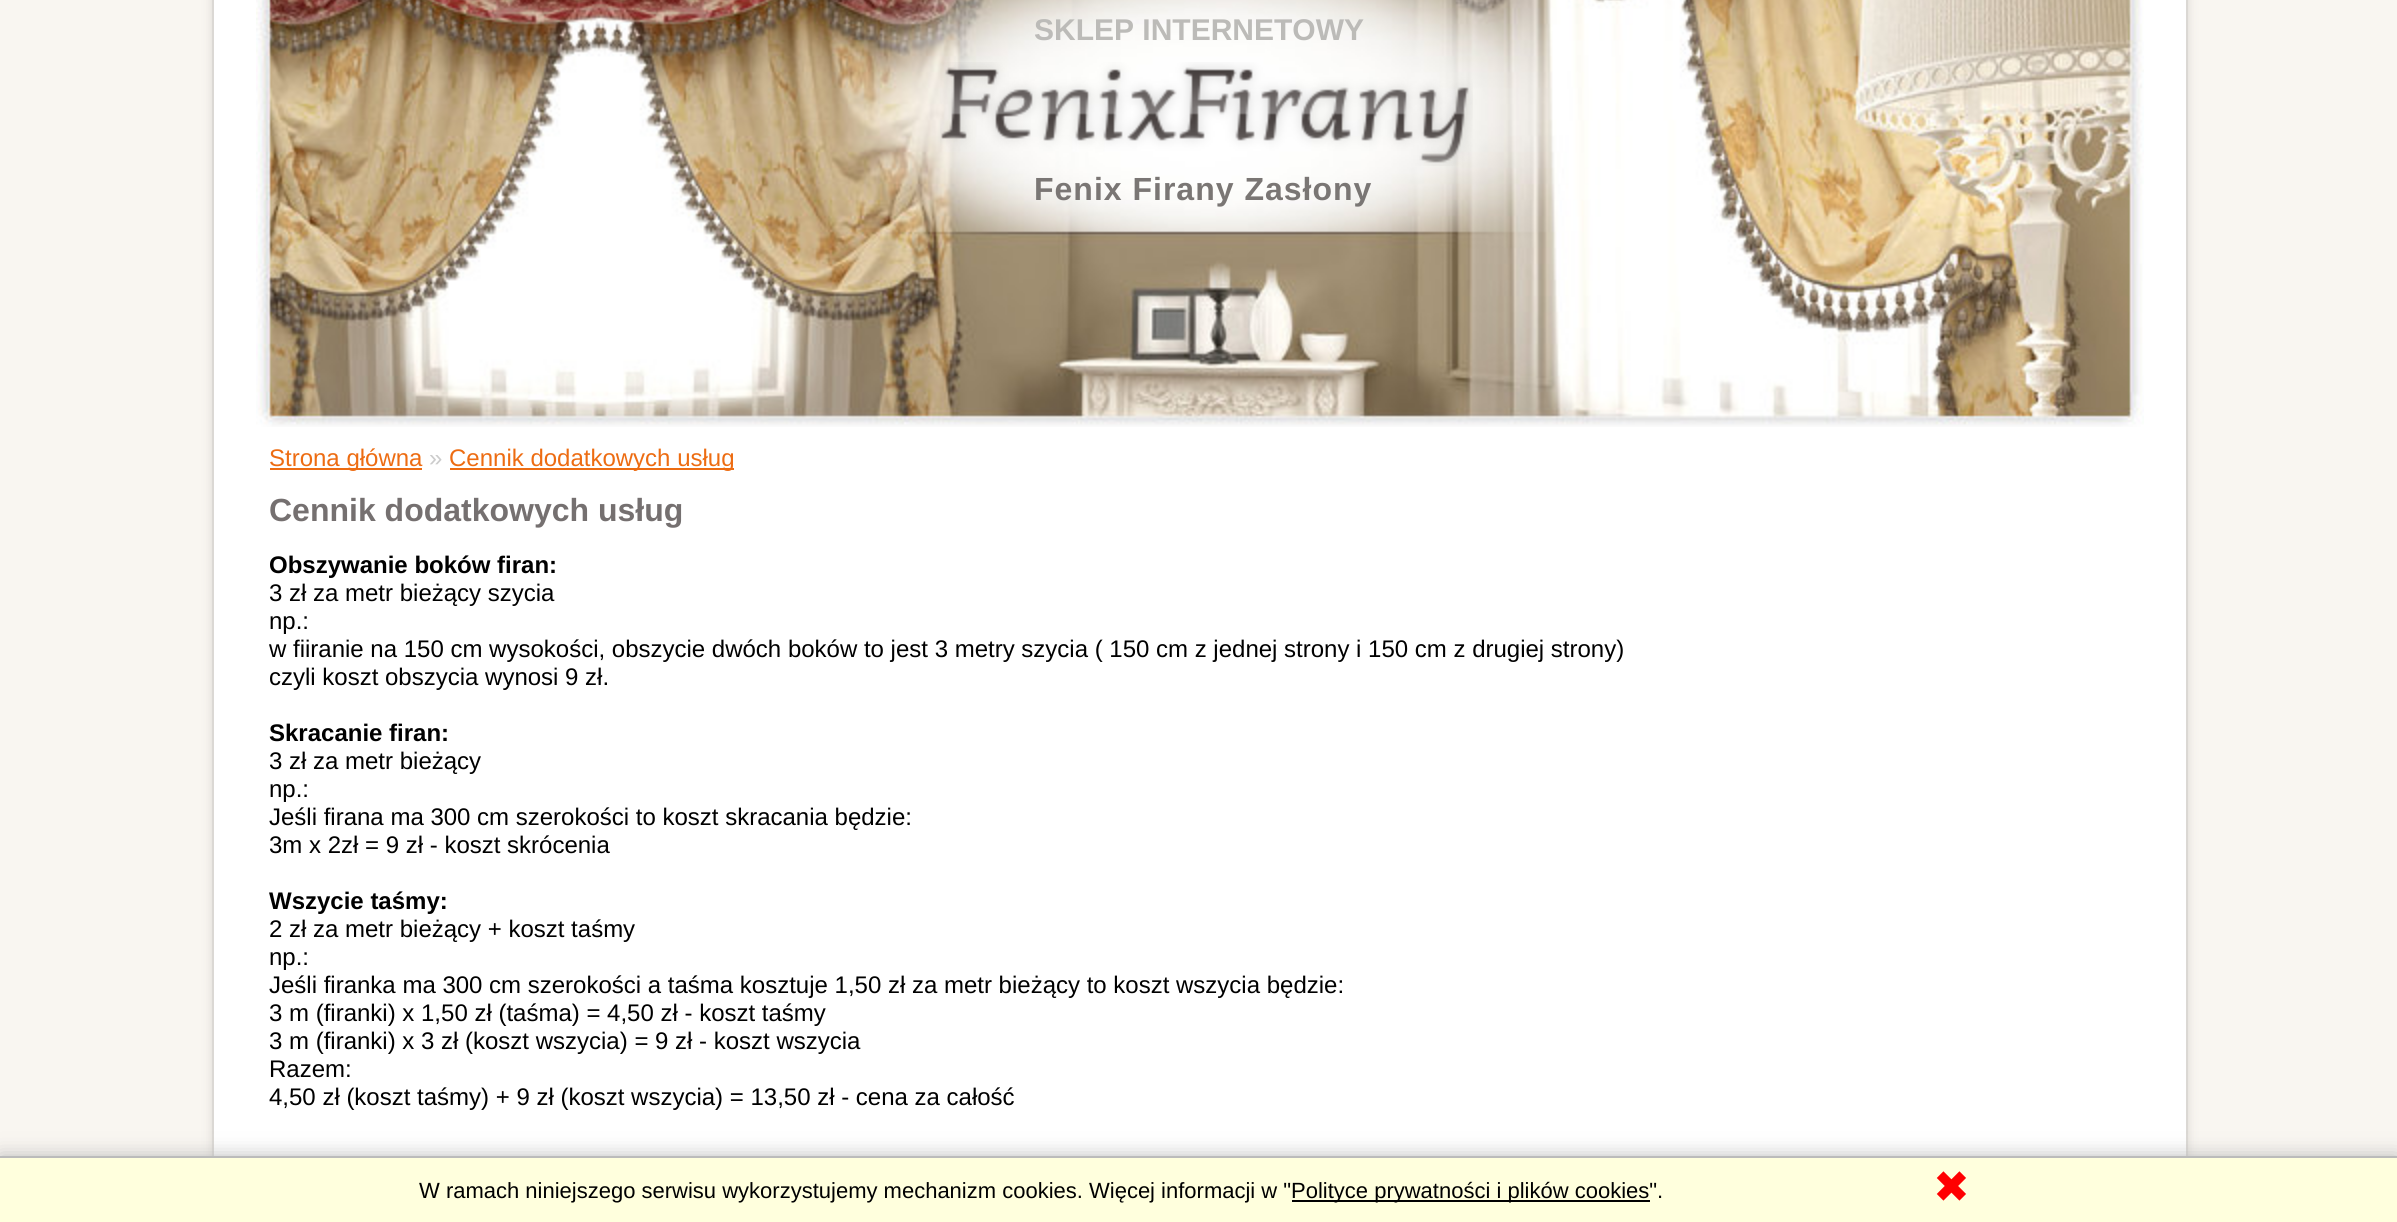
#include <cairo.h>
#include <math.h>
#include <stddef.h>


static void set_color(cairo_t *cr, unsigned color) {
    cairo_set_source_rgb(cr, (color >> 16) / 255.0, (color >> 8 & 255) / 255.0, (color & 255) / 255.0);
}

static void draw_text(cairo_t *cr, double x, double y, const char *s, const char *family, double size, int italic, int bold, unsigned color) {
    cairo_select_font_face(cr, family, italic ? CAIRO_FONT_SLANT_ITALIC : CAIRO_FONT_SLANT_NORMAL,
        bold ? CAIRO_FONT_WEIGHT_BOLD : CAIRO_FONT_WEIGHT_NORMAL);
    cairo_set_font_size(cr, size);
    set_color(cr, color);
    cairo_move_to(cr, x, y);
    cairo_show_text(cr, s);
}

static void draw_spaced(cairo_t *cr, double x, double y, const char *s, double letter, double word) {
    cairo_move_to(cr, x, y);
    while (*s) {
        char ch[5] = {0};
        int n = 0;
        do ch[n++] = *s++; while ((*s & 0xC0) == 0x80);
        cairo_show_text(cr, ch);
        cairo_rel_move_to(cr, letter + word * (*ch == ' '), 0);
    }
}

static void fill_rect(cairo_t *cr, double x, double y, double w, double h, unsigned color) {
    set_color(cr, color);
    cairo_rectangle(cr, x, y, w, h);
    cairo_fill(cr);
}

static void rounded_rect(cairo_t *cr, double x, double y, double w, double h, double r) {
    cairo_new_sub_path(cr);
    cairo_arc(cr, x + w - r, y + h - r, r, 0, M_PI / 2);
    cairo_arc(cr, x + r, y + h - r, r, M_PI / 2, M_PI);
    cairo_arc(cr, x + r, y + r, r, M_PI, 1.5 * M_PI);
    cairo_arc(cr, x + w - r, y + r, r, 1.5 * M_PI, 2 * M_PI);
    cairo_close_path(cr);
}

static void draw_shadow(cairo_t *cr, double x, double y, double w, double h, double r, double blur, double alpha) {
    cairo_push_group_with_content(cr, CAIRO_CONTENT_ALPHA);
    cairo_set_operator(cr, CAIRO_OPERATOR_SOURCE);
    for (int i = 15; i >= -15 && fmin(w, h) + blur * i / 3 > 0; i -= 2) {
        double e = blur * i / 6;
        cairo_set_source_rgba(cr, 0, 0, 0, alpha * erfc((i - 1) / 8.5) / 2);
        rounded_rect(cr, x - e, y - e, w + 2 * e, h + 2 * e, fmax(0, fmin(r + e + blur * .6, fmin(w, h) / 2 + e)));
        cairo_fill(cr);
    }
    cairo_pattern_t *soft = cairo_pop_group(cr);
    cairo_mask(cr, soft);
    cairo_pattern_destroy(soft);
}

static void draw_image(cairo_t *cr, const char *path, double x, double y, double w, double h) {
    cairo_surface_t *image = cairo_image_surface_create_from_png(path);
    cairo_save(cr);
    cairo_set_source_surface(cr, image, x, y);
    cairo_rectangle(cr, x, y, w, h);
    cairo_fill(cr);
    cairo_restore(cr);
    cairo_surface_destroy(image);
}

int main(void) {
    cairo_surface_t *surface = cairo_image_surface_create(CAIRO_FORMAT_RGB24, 2397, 1222);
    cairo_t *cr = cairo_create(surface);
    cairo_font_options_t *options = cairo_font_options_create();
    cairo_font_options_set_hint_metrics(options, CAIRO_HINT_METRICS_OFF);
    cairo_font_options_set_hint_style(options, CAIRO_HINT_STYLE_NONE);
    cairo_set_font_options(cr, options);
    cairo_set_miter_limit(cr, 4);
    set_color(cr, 0xF9F6F1);
    cairo_paint(cr);
    set_color(cr, 0xDCD9D4);
    draw_shadow(cr, 212, -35, 1976, 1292, 20, 5, 1);
    fill_rect(cr, 214, 0, 1972, 1156, 0xFFFFFF);
    cairo_rectangle(cr, 213, -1, 1974, 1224);
    set_color(cr, 0xDBD8D4);
    cairo_stroke(cr);
    draw_image(cr, "assets/img1.png", 256, 0, 1888, 427);
    draw_text(cr, 1034, 40, "SKLEP INTERNETOWY", "Liberation Sans", 30, 0, 1, 0xBCBBB8);
    draw_image(cr, "assets/img2.png", 940, 62, 533, 104);
    cairo_set_font_size(cr, 32);
    set_color(cr, 0x7A7674);
    draw_spaced(cr, 1034, 200, "Fenix Firany Zasłony", 1, 0);
    fill_rect(cr, 270, 468, 152, 2, 0xED6C12);
    draw_text(cr, 269, 466, "Strona główna", "Liberation Sans", 24, 0, 0, 0xED6C12);
    draw_text(cr, 429, 466, "»", "Liberation Sans", 24, 0, 0, 0xCCCCCC);
    fill_rect(cr, 450, 468, 284, 2, 0xED6C12);
    draw_text(cr, 449, 466, "Cennik dodatkowych usług", "Liberation Sans", 24, 0, 0, 0xED6C12);
    draw_text(cr, 269, 521, "Cennik dodatkowych usług", "Liberation Sans", 32, 0, 1, 0x757070);
    draw_text(cr, 269, 573, "Obszywanie boków firan:", "Liberation Sans", 24, 0, 1, 0x000000);
    draw_text(cr, 269, 601, "3 zł za metr bieżący szycia", "Liberation Sans", 24, 0, 0, 0x000000);
    draw_text(cr, 269, 629, "np.:", "Liberation Sans", 24, 0, 0, 0x000000);
    draw_text(cr, 269, 657, "w fiiranie na 150 cm wysokości, obszycie dwóch boków to jest 3 metry szycia ( 150 cm z jednej strony i 150 cm z drugiej strony)", "Liberation Sans", 24, 0, 0, 0x000000);
    draw_text(cr, 269, 685, "czyli koszt obszycia wynosi 9 zł.", "Liberation Sans", 24, 0, 0, 0x000000);
    draw_text(cr, 269, 741, "Skracanie firan:", "Liberation Sans", 24, 0, 1, 0x000000);
    draw_text(cr, 269, 769, "3 zł za metr bieżący", "Liberation Sans", 24, 0, 0, 0x000000);
    draw_text(cr, 269, 797, "np.:", "Liberation Sans", 24, 0, 0, 0x000000);
    draw_text(cr, 269, 825, "Jeśli firana ma 300 cm szerokości to koszt skracania będzie:", "Liberation Sans", 24, 0, 0, 0x000000);
    draw_text(cr, 269, 853, "3m x 2zł = 9 zł - koszt skrócenia", "Liberation Sans", 24, 0, 0, 0x000000);
    draw_text(cr, 269, 909, "Wszycie taśmy:", "Liberation Sans", 24, 0, 1, 0x000000);
    draw_text(cr, 269, 937, "2 zł za metr bieżący + koszt taśmy", "Liberation Sans", 24, 0, 0, 0x000000);
    draw_text(cr, 269, 965, "np.:", "Liberation Sans", 24, 0, 0, 0x000000);
    draw_text(cr, 269, 993, "Jeśli firanka ma 300 cm szerokości a taśma kosztuje 1,50 zł za metr bieżący to koszt wszycia będzie:", "Liberation Sans", 24, 0, 0, 0x000000);
    draw_text(cr, 269, 1021, "3 m (firanki) x 1,50 zł (taśma) = 4,50 zł - koszt taśmy", "Liberation Sans", 24, 0, 0, 0x000000);
    draw_text(cr, 269, 1049, "3 m (firanki) x 3 zł (koszt wszycia) = 9 zł - koszt wszycia", "Liberation Sans", 24, 0, 0, 0x000000);
    draw_text(cr, 269, 1077, "Razem:", "Liberation Sans", 24, 0, 0, 0x000000);
    draw_text(cr, 269, 1105, "4,50 zł (koszt taśmy) + 9 zł (koszt wszycia) = 13,50 zł - cena za całość", "Liberation Sans", 24, 0, 0, 0x000000);
    set_color(cr, 0xBBBBBB);
    draw_shadow(cr, 0, 1156, 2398, 66, 0, 10, 1);
    fill_rect(cr, 0, 1158, 2397, 64, 0xFFFFDD);
    fill_rect(cr, 0, 1156, 2397, 2, 0xBBBBBB);
    draw_text(cr, 419, 1198, "W ramach niniejszego serwisu wykorzystujemy mechanizm cookies. Więcej informacji w \"", "Liberation Sans", 22, 0, 0, 0x000000);
    fill_rect(cr, 1292, 1200, 358, 2, 0x000000);
    draw_text(cr, 1291, 1198, "Polityce prywatności i plików cookies\".", "Liberation Sans", 22, 0, 0, 0x000000);
    draw_text(cr, 1933, 1202, "✖", "DejaVu Sans", 44, 0, 0, 0xFF0000);
    cairo_surface_write_to_png(surface, "output.png");
    cairo_font_options_destroy(options);
    cairo_destroy(cr);
    cairo_surface_destroy(surface);
    return 0;
}
